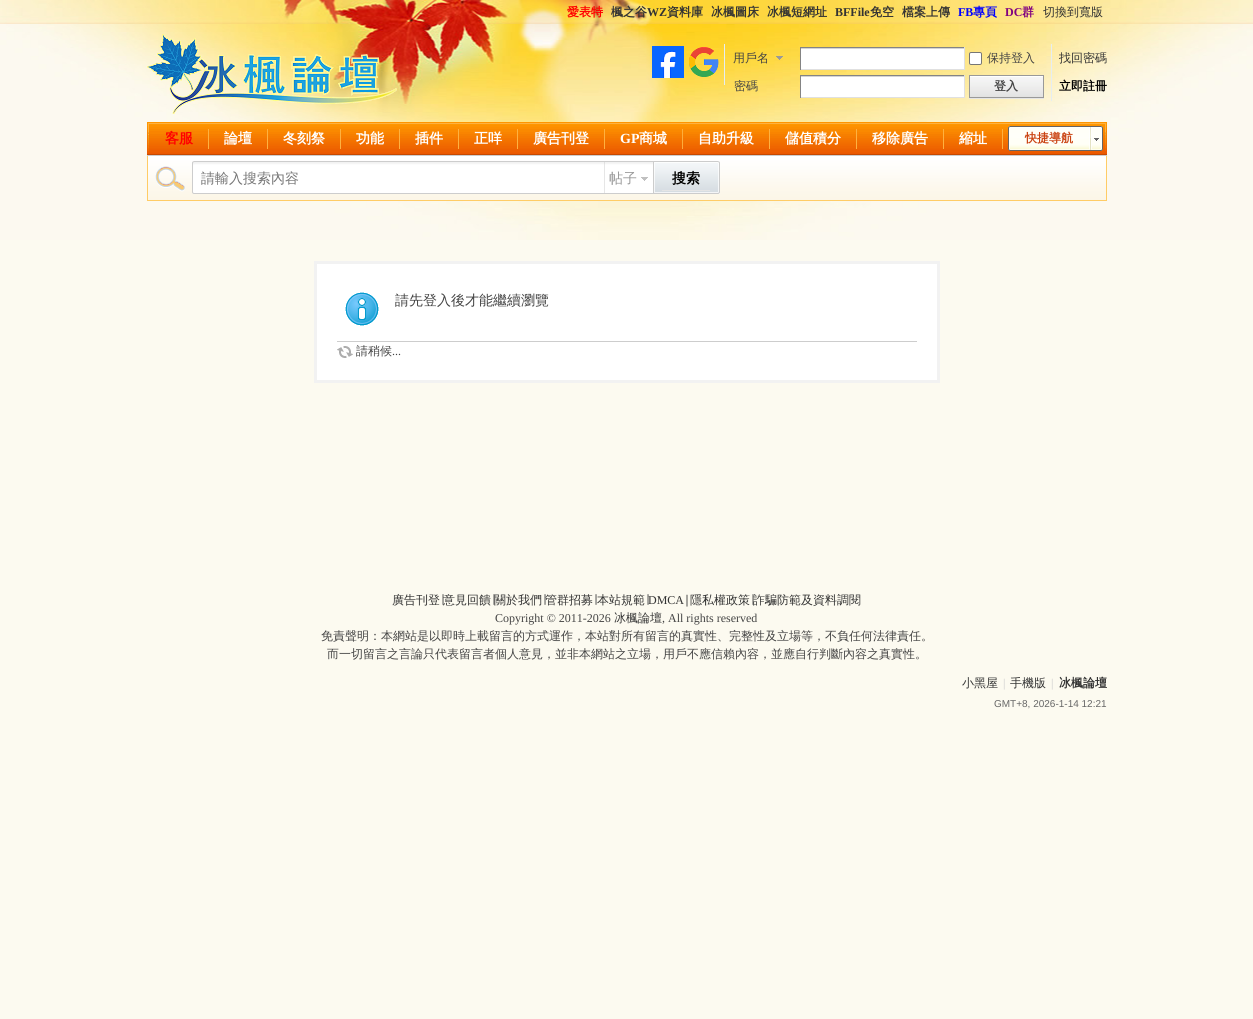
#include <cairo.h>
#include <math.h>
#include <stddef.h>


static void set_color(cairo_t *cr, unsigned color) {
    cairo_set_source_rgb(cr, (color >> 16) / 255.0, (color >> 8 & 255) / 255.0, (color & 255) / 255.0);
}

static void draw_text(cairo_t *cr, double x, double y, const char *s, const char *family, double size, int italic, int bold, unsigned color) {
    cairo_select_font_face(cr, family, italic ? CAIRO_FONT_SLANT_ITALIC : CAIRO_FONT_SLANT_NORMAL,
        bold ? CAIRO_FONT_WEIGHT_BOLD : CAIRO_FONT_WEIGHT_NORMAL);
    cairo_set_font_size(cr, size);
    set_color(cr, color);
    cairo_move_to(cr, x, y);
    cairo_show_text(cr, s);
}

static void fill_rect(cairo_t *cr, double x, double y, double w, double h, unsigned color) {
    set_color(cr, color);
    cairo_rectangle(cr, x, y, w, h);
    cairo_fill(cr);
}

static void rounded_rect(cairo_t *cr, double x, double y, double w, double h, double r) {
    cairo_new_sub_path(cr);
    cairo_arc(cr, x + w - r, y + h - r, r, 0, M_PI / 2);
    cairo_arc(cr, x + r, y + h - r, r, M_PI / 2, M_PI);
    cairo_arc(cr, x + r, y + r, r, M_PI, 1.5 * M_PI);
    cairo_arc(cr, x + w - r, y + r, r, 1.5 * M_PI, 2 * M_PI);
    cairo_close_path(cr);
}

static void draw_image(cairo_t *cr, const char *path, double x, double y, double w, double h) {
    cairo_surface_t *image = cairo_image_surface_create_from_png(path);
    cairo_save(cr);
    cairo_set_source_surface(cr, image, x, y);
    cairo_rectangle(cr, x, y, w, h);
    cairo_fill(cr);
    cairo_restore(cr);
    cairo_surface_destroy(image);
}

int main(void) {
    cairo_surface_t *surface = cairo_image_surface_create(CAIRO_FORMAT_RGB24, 1253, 1019);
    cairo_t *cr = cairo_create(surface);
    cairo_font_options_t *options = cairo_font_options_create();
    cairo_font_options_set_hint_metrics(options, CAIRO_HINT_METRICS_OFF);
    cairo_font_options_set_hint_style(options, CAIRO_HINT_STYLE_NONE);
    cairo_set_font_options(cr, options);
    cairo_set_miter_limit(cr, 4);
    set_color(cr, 0xFCFAF0);
    cairo_paint(cr);
    draw_image(cr, "assets/img1.png", 0, 0, 1253, 240);
    draw_text(cr, 567, 16, "愛表特", "WenQuanYi Zen Hei", 12, 0, 1, 0xFF0000);
    draw_text(cr, 611, 16, "楓之谷", "WenQuanYi Zen Hei", 12, 0, 1, 0x333333);
    draw_text(cr, 647, 16, "WZ", "Liberation Serif", 12, 0, 1, 0x333333);
    draw_text(cr, 667, 16, "資料庫", "WenQuanYi Zen Hei", 12, 0, 1, 0x333333);
    draw_text(cr, 711, 16, "冰楓圖床", "WenQuanYi Zen Hei", 12, 0, 1, 0x333333);
    draw_text(cr, 767, 16, "冰楓短網址", "WenQuanYi Zen Hei", 12, 0, 1, 0x333333);
    draw_text(cr, 835, 16, "BFFile", "Liberation Serif", 12, 0, 1, 0x333333);
    draw_text(cr, 870, 16, "免空", "WenQuanYi Zen Hei", 12, 0, 1, 0x333333);
    draw_text(cr, 902, 16, "檔案上傳", "WenQuanYi Zen Hei", 12, 0, 1, 0x333333);
    draw_text(cr, 958, 16, "FB", "Liberation Serif", 12, 0, 1, 0x0000FF);
    draw_text(cr, 973, 16, "專頁", "WenQuanYi Zen Hei", 12, 0, 1, 0x0000FF);
    draw_text(cr, 1005, 16, "DC", "Liberation Serif", 12, 0, 1, 0x800080);
    draw_text(cr, 1022, 16, "群", "WenQuanYi Zen Hei", 12, 0, 1, 0x800080);
    draw_text(cr, 1043, 16, "切換到寬版", "WenQuanYi Zen Hei Medium", 12, 0, 0, 0x333333);
    draw_image(cr, "assets/img2.png", 147, 34, 250, 80);
    draw_image(cr, "assets/img3.png", 652, 46, 32, 32);
    draw_image(cr, "assets/img4.png", 689, 47, 30, 30);
    fill_rect(cr, 724, 44, 1, 41, 0xE5EDF2);
    draw_image(cr, "assets/img5.png", 776, 56, 7, 4);
    draw_text(cr, 733, 62, "用戶名", "WenQuanYi Zen Hei Medium", 12, 0, 0, 0x444444);
    fill_rect(cr, 801, 49, 163, 20, 0xFFFFFF);
    fill_rect(cr, 800, 48, 165, 1, 0xD4D4D4);
    fill_rect(cr, 800, 47, 165, 1, 0x848484);
    fill_rect(cr, 964, 47, 1, 23, 0xE0E0E0);
    fill_rect(cr, 800, 69, 165, 1, 0xE0E0E0);
    fill_rect(cr, 800, 47, 1, 23, 0x848484);
    set_color(cr, 0xFFFFFF);
    rounded_rect(cr, 969.5, 52.5, 12, 12, 1.5);
    cairo_fill_preserve(cr);
    set_color(cr, 0x767676);
    cairo_set_line_width(cr, 1);
    cairo_stroke(cr);
    draw_text(cr, 987, 62, "保持登入", "WenQuanYi Zen Hei Medium", 12, 0, 0, 0x444444);
    draw_text(cr, 1059, 62, "找回密碼", "WenQuanYi Zen Hei Medium", 12, 0, 0, 0x333333);
    draw_text(cr, 734, 90, "密碼", "WenQuanYi Zen Hei Medium", 12, 0, 0, 0x444444);
    fill_rect(cr, 801, 77, 163, 20, 0xFFFFFF);
    fill_rect(cr, 800, 76, 165, 1, 0xD4D4D4);
    fill_rect(cr, 800, 75, 165, 1, 0x848484);
    fill_rect(cr, 964, 75, 1, 23, 0xE0E0E0);
    fill_rect(cr, 800, 97, 165, 1, 0xE0E0E0);
    fill_rect(cr, 800, 75, 1, 23, 0x848484);
    fill_rect(cr, 1051, 44, 1, 57, 0xE5EDF2);
    fill_rect(cr, 969, 98, 75, 1, 0xE5E5E5);
    draw_image(cr, "assets/img6.png", 970, 76, 73, 21);
    cairo_rectangle(cr, 969.5, 75.5, 74, 22);
    set_color(cr, 0x999999);
    cairo_stroke(cr);
    draw_text(cr, 994, 90, "登入", "WenQuanYi Zen Hei", 12, 0, 1, 0x444444);
    draw_text(cr, 1059, 90, "立即註冊", "WenQuanYi Zen Hei", 12, 0, 1, 0x000000);
    fill_rect(cr, 147, 122, 960, 1, 0xFE9500);
    draw_image(cr, "assets/img7.png", 147, 123, 960, 32);
    fill_rect(cr, 208, 129, 1, 20, 0xFEB140);
    draw_text(cr, 165, 143, "客服", "WenQuanYi Zen Hei", 14, 0, 1, 0xFF0000);
    fill_rect(cr, 267, 129, 1, 20, 0xFEB140);
    draw_text(cr, 224, 143, "論壇", "WenQuanYi Zen Hei", 14, 0, 1, 0xFFFFFF);
    fill_rect(cr, 340, 129, 1, 20, 0xFEB140);
    draw_text(cr, 283, 143, "冬刻祭", "WenQuanYi Zen Hei", 14, 0, 1, 0xFFFFFF);
    fill_rect(cr, 399, 129, 1, 20, 0xFEB140);
    draw_text(cr, 356, 143, "功能", "WenQuanYi Zen Hei", 14, 0, 1, 0xFFFFFF);
    fill_rect(cr, 458, 129, 1, 20, 0xFEB140);
    draw_text(cr, 415, 143, "插件", "WenQuanYi Zen Hei", 14, 0, 1, 0xFFFFFF);
    fill_rect(cr, 517, 129, 1, 20, 0xFEB140);
    draw_text(cr, 474, 143, "正咩", "WenQuanYi Zen Hei", 14, 0, 1, 0xFFFFFF);
    fill_rect(cr, 604, 129, 1, 20, 0xFEB140);
    draw_text(cr, 533, 143, "廣告刊登", "WenQuanYi Zen Hei", 14, 0, 1, 0xFFFFFF);
    cairo_set_source_rgba(cr, 0.996, 0.69, 0.251, 0.94);
    cairo_rectangle(cr, 682, 129, 1, 20);
    cairo_fill(cr);
    draw_text(cr, 620, 143, "GP", "Liberation Serif", 14, 0, 1, 0xFFFFFF);
    draw_text(cr, 639, 143, "商城", "WenQuanYi Zen Hei", 14, 0, 1, 0xFFFFFF);
    fill_rect(cr, 769, 129, 1, 20, 0xFEB140);
    draw_text(cr, 698, 143, "自助升級", "WenQuanYi Zen Hei", 14, 0, 1, 0xFFFFFF);
    fill_rect(cr, 856, 129, 1, 20, 0xFEB140);
    draw_text(cr, 785, 143, "儲值積分", "WenQuanYi Zen Hei", 14, 0, 1, 0xFFFFFF);
    fill_rect(cr, 943, 129, 1, 20, 0xFEB140);
    draw_text(cr, 872, 143, "移除廣告", "WenQuanYi Zen Hei", 14, 0, 1, 0xFFFFFF);
    fill_rect(cr, 1002, 129, 1, 20, 0xFEB140);
    draw_text(cr, 959, 143, "縮址", "WenQuanYi Zen Hei", 14, 0, 1, 0xFFFFFF);
    draw_image(cr, "assets/img8.png", 1008, 126, 95, 25);
    draw_text(cr, 1025, 142, "快捷導航", "WenQuanYi Zen Hei", 12, 0, 1, 0xCA4312);
    fill_rect(cr, 147, 155, 960, 1, 0xCDCDCD);
    draw_image(cr, "assets/img9.png", 148, 156, 958, 44);
    fill_rect(cr, 1106, 156, 1, 45, 0xFFCC66);
    fill_rect(cr, 147, 200, 960, 1, 0xFFCC66);
    fill_rect(cr, 147, 156, 1, 45, 0xFFCC66);
    draw_image(cr, "assets/img10.png", 155, 161, 43, 33);
    draw_image(cr, "assets/img11.png", 198, 161, 406, 33);
    cairo_save(cr);
    cairo_rectangle(cr, 201, 170, 400, 18);
    cairo_clip(cr);
    draw_text(cr, 201, 183, "請輸入搜索內容", "WenQuanYi Zen Hei Medium", 14, 0, 0, 0x757575);
    cairo_restore(cr);
    draw_image(cr, "assets/img12.png", 604, 161, 49, 33);
    draw_image(cr, "assets/img13.png", 641, 177, 7, 4);
    draw_text(cr, 609, 183, "帖子", "WenQuanYi Zen Hei Medium", 14, 0, 0, 0x999999);
    draw_image(cr, "assets/img14.png", 653, 161, 67, 33);
    fill_rect(cr, 662, 190, 48, 1, 0xE5E5E5);
    draw_text(cr, 672, 183, "搜索", "WenQuanYi Zen Hei", 14, 0, 1, 0x000000);
    set_color(cr, 0xFFFFFF);
    cairo_rectangle(cr, 315.5, 262.5, 623, 119);
    cairo_fill_preserve(cr);
    set_color(cr, 0xF2F2F2);
    cairo_set_line_width(cr, 3);
    cairo_stroke(cr);
    draw_image(cr, "assets/img15.png", 345, 292, 34, 34);
    draw_text(cr, 395, 305, "請先登入後才能繼續瀏覽", "WenQuanYi Zen Hei Medium", 14, 0, 0, 0x444444);
    fill_rect(cr, 337, 341, 580, 1, 0xCDCDCD);
    draw_image(cr, "assets/img16.png", 337, 346, 16, 12);
    draw_text(cr, 356, 355, "請稍候", "WenQuanYi Zen Hei Medium", 12, 0, 0, 0x444444);
    draw_text(cr, 392, 355, "...", "Liberation Serif", 12, 0, 0, 0x444444);
    draw_text(cr, 392, 604, "廣告刊登", "WenQuanYi Zen Hei Medium", 12, 0, 0, 0x333333);
    draw_text(cr, 440, 604, "∣", "WenQuanYi Zen Hei Medium", 12, 0, 0, 0x444444);
    draw_text(cr, 750, 604, "∣", "WenQuanYi Zen Hei Medium", 12, 0, 0, 0x444444);
    draw_text(cr, 753, 604, "詐騙防範及資料調閱", "WenQuanYi Zen Hei Medium", 12, 0, 0, 0x333333);
    draw_text(cr, 443, 604, "意見回饋", "WenQuanYi Zen Hei Medium", 12, 0, 0, 0x333333);
    draw_text(cr, 491, 604, "∣", "WenQuanYi Zen Hei Medium", 12, 0, 0, 0x444444);
    draw_text(cr, 494, 604, "關於我們", "WenQuanYi Zen Hei Medium", 12, 0, 0, 0x333333);
    draw_text(cr, 542, 604, "∣", "WenQuanYi Zen Hei Medium", 12, 0, 0, 0x444444);
    draw_text(cr, 545, 604, "管群招募", "WenQuanYi Zen Hei Medium", 12, 0, 0, 0x333333);
    draw_text(cr, 593, 604, "∣", "WenQuanYi Zen Hei Medium", 12, 0, 0, 0x444444);
    draw_text(cr, 597, 604, "本站規範", "WenQuanYi Zen Hei Medium", 12, 0, 0, 0x333333);
    draw_text(cr, 645, 604, "∣", "WenQuanYi Zen Hei Medium", 12, 0, 0, 0x444444);
    draw_text(cr, 684, 604, "∣", "DejaVu Sans", 12, 0, 0, 0x444444);
    draw_text(cr, 690, 604, "隱私權政策", "WenQuanYi Zen Hei Medium", 12, 0, 0, 0x333333);
    draw_text(cr, 648, 604, "DMCA", "Liberation Serif", 12, 0, 0, 0x333333);
    draw_text(cr, 495, 622, "Copyright © 2011-2026", "Liberation Serif", 12, 0, 0, 0x444444);
    draw_text(cr, 614, 622, "冰楓論壇", "WenQuanYi Zen Hei Medium", 12, 0, 0, 0x333333);
    draw_text(cr, 662, 622, ", All rights reserved", "Liberation Serif", 12, 0, 0, 0x444444);
    draw_text(cr, 321, 640, "免責聲明：本網站是以即時上載留言的方式運作，本站對所有留言的真實性、完整性及立場等，不負任何法律責任。", "WenQuanYi Zen Hei Medium", 12, 0, 0, 0x444444);
    draw_text(cr, 327, 658, "而一切留言之言論只代表留言者個人意見，並非本網站之立場，用戶不應信賴內容，並應自行判斷內容之真實性。", "WenQuanYi Zen Hei Medium", 12, 0, 0, 0x444444);
    draw_text(cr, 962, 687, "小黑屋", "WenQuanYi Zen Hei Medium", 12, 0, 0, 0x333333);
    draw_text(cr, 1003, 687, "|", "Liberation Serif", 12, 0, 0, 0xCCCCCC);
    draw_text(cr, 1010, 687, "手機版", "WenQuanYi Zen Hei Medium", 12, 0, 0, 0x333333);
    draw_text(cr, 1051, 687, "|", "Liberation Serif", 12, 0, 0, 0xCCCCCC);
    draw_text(cr, 1059, 687, "冰楓論壇", "WenQuanYi Zen Hei", 12, 0, 1, 0x333333);
    draw_text(cr, 994, 707, "GMT+8, 2026-1-14 12:21", "Liberation Sans", 10, 0, 0, 0x666666);
    cairo_surface_write_to_png(surface, "output.png");
    cairo_font_options_destroy(options);
    cairo_destroy(cr);
    cairo_surface_destroy(surface);
    return 0;
}
